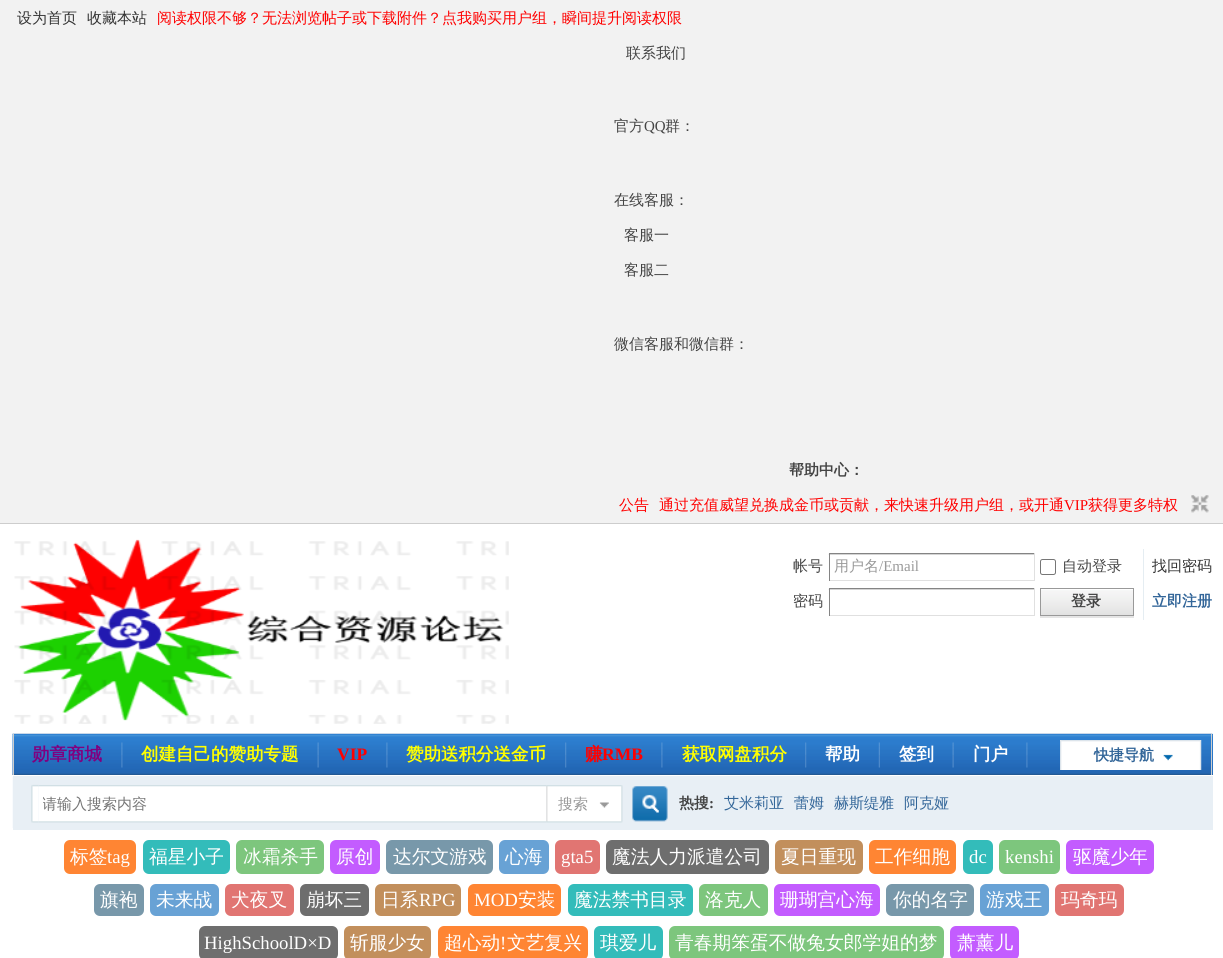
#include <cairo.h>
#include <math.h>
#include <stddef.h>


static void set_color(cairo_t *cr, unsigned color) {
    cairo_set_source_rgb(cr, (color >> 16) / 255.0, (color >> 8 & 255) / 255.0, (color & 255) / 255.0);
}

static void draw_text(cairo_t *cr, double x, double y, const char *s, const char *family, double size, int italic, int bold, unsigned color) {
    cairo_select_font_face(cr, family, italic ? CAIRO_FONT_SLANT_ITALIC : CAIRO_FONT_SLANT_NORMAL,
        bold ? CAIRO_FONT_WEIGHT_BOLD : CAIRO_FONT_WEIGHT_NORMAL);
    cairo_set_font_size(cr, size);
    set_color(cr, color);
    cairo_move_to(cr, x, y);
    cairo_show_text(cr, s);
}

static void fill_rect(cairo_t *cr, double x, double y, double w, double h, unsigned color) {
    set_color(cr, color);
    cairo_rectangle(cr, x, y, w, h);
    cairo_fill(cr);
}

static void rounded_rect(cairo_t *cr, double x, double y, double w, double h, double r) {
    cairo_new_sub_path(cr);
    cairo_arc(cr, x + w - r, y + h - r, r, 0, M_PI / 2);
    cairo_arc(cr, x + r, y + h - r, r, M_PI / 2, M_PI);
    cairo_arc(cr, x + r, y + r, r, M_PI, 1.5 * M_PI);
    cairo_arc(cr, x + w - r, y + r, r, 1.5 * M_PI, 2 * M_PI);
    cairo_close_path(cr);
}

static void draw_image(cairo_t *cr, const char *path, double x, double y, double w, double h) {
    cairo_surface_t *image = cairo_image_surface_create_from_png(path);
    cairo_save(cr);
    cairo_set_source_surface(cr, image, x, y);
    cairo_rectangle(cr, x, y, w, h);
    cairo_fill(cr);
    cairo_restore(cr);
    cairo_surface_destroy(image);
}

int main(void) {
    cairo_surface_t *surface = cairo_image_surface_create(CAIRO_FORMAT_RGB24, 1223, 958);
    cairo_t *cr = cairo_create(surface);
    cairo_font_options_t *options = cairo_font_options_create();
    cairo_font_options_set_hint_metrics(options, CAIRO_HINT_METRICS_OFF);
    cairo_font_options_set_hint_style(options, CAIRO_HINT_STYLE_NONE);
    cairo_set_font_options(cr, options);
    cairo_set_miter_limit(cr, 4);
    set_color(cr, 0xFFFFFF);
    cairo_paint(cr);
    fill_rect(cr, 0, 0, 1223, 523, 0xF2F2F2);
    fill_rect(cr, 0, 523, 1223, 1, 0xCDCDCD);
    draw_text(cr, 17, 23, "设为首页", "WenQuanYi Zen Hei Medium", 15, 0, 0, 0x333333);
    draw_text(cr, 87, 23, "收藏本站", "WenQuanYi Zen Hei Medium", 15, 0, 0, 0x333333);
    draw_text(cr, 157, 23, "阅读权限不够？无法浏览帖子或下载附件？点我购买用户组，瞬间提升阅读权限", "WenQuanYi Zen Hei Medium", 15, 0, 0, 0xFF0000);
    draw_text(cr, 626, 58, "联系我们", "WenQuanYi Zen Hei Medium", 15, 0, 0, 0x444444);
    draw_text(cr, 614, 131, "官方", "WenQuanYi Zen Hei Medium", 15, 0, 0, 0x444444);
    draw_text(cr, 644, 131, "QQ", "Liberation Serif", 15, 0, 0, 0x444444);
    draw_text(cr, 665, 131, "群：", "WenQuanYi Zen Hei Medium", 15, 0, 0, 0x444444);
    draw_text(cr, 614, 205, "在线客服：", "WenQuanYi Zen Hei Medium", 15, 0, 0, 0x444444);
    draw_text(cr, 624, 240, "客服一", "WenQuanYi Zen Hei Medium", 15, 0, 0, 0x444444);
    draw_text(cr, 624, 275, "客服二", "WenQuanYi Zen Hei Medium", 15, 0, 0, 0x444444);
    draw_text(cr, 614, 349, "微信客服和微信群：", "WenQuanYi Zen Hei Medium", 15, 0, 0, 0x444444);
    draw_text(cr, 789, 475, "帮助中心：", "WenQuanYi Zen Hei", 15, 0, 1, 0x444444);
    draw_text(cr, 619, 510, "公告", "WenQuanYi Zen Hei Medium", 15, 0, 0, 0xFF0000);
    draw_text(cr, 659, 510, "通过充值威望兑换成金币或贡献，来快速升级用户组，或开通", "WenQuanYi Zen Hei Medium", 15, 0, 0, 0xFF0000);
    draw_text(cr, 1064, 510, "VIP", "Liberation Serif", 15, 0, 0, 0xFF0000);
    draw_text(cr, 1088, 510, "获得更多特权", "WenQuanYi Zen Hei Medium", 15, 0, 0, 0xFF0000);
    draw_image(cr, "assets/img1.png", 1191, 495, 18, 18);
    draw_image(cr, "assets/img2.png", 14, 539, 495, 185);
    draw_text(cr, 793, 571, "帐号", "WenQuanYi Zen Hei Medium", 15, 0, 0, 0x444444);
    draw_image(cr, "assets/img3.png", 828, 553, 206, 2);
    fill_rect(cr, 829, 553, 206, 1, 0x848484);
    fill_rect(cr, 1034, 553, 1, 28, 0xE0E0E0);
    fill_rect(cr, 829, 580, 206, 1, 0xE0E0E0);
    fill_rect(cr, 829, 553, 1, 28, 0x848484);
    draw_text(cr, 834, 571, "用户名", "WenQuanYi Zen Hei Medium", 15, 0, 0, 0x999999);
    draw_text(cr, 879, 571, "/Email", "Liberation Serif", 15, 0, 0, 0x999999);
    rounded_rect(cr, 1040.5, 559.5, 15, 15, 2);
    set_color(cr, 0x767676);
    cairo_set_line_width(cr, 1);
    cairo_stroke(cr);
    draw_text(cr, 1062, 571, "自动登录", "WenQuanYi Zen Hei Medium", 15, 0, 0, 0x444444);
    draw_text(cr, 1152, 571, "找回密码", "WenQuanYi Zen Hei Medium", 15, 0, 0, 0x333333);
    draw_text(cr, 793, 606, "密码", "WenQuanYi Zen Hei Medium", 15, 0, 0, 0x444444);
    draw_image(cr, "assets/img3.png", 828, 588, 206, 2);
    fill_rect(cr, 829, 588, 206, 1, 0x848484);
    fill_rect(cr, 1034, 588, 1, 28, 0xE0E0E0);
    fill_rect(cr, 829, 615, 206, 1, 0xE0E0E0);
    fill_rect(cr, 829, 588, 1, 28, 0x848484);
    fill_rect(cr, 1143, 549, 1, 71, 0xE5EDF2);
    set_color(cr, 0xE5E5E5);
    cairo_new_path(cr);
    cairo_move_to(cr, 1040, 616);
    cairo_line_to(cr, 1040, 618);
    cairo_line_to(cr, 1134, 618);
    cairo_line_to(cr, 1134, 589);
    cairo_line_to(cr, 1134, 616);
    cairo_close_path(cr);
    cairo_fill(cr);
    draw_image(cr, "assets/img4.png", 1041, 589, 92, 26);
    cairo_rectangle(cr, 1040.5, 588.5, 93, 27);
    set_color(cr, 0x999999);
    cairo_stroke(cr);
    draw_text(cr, 1071, 606, "登录", "WenQuanYi Zen Hei", 15, 0, 1, 0x444444);
    draw_text(cr, 1152, 606, "立即注册", "WenQuanYi Zen Hei", 15, 0, 1, 0x336699);
    fill_rect(cr, 1212, 734, 1, 41, 0x2B7ACD);
    draw_image(cr, "assets/img5.png", 12, 733, 1201, 42);
    fill_rect(cr, 1211, 734, 1, 41, 0xCDCDCD);
    fill_rect(cr, 13, 734, 1, 41, 0xCDCDCD);
    draw_image(cr, "assets/img6.png", 121, 742, 2, 26);
    draw_text(cr, 32, 760, "勋章商城", "WenQuanYi Zen Hei", 17.5, 0, 1, 0x800080);
    draw_image(cr, "assets/img7.png", 317, 742, 2, 26);
    draw_text(cr, 141, 760, "创建自己的赞助专题", "WenQuanYi Zen Hei", 17.5, 0, 1, 0xFFFF00);
    draw_image(cr, "assets/img8.png", 386, 742, 2, 26);
    draw_text(cr, 337, 760, "VIP", "Liberation Serif", 17.5, 0, 1, 0xFF0000);
    draw_image(cr, "assets/img9.png", 565, 742, 2, 26);
    draw_text(cr, 406, 760, "赞助送积分送金币", "WenQuanYi Zen Hei", 17.5, 0, 1, 0xFFFF00);
    draw_image(cr, "assets/img8.png", 661, 742, 2, 26);
    draw_text(cr, 585, 760, "赚", "WenQuanYi Zen Hei", 17.5, 0, 1, 0xFF0000);
    draw_text(cr, 602, 760, "RMB", "Liberation Serif", 17.5, 0, 1, 0xFF0000);
    draw_image(cr, "assets/img10.png", 805, 742, 2, 26);
    draw_text(cr, 682, 760, "获取网盘积分", "WenQuanYi Zen Hei", 17.5, 0, 1, 0xFFFF00);
    draw_image(cr, "assets/img11.png", 878, 742, 2, 26);
    draw_text(cr, 825, 760, "帮助", "WenQuanYi Zen Hei", 17.5, 0, 1, 0xFFFFFF);
    draw_image(cr, "assets/img12.png", 952, 742, 2, 26);
    draw_text(cr, 899, 760, "签到", "WenQuanYi Zen Hei", 17.5, 0, 1, 0xFFFFFF);
    draw_image(cr, "assets/img13.png", 1026, 742, 2, 26);
    draw_text(cr, 973, 760, "门户", "WenQuanYi Zen Hei", 17.5, 0, 1, 0xFFFFFF);
    draw_image(cr, "assets/img14.png", 1060, 740, 142, 30);
    draw_text(cr, 1094, 760, "快捷导航", "WenQuanYi Zen Hei", 15, 0, 1, 0x336699);
    fill_rect(cr, 13, 776, 1200, 54, 0xE8EFF5);
    draw_image(cr, "assets/img15.png", 12, 777, 27, 51);
    draw_image(cr, "assets/img16.png", 39, 785, 508, 38);
    cairo_save(cr);
    cairo_rectangle(cr, 43, 795, 500, 21);
    cairo_clip(cr);
    draw_text(cr, 42, 809, "请输入搜索内容", "WenQuanYi Zen Hei Medium", 15, 0, 0, 0x757575);
    cairo_restore(cr);
    draw_image(cr, "assets/img17.png", 546, 785, 77, 38);
    draw_text(cr, 558, 809, "搜索", "WenQuanYi Zen Hei Medium", 15, 0, 0, 0x999999);
    draw_image(cr, "assets/img18.png", 632, 786, 36, 36);
    draw_text(cr, 679, 808, "热搜", "WenQuanYi Zen Hei", 15, 0, 1, 0x444444);
    draw_text(cr, 709, 808, ":", "Liberation Serif", 15, 0, 1, 0x444444);
    draw_text(cr, 724, 808, "艾米莉亚", "WenQuanYi Zen Hei Medium", 15, 0, 0, 0x336699);
    draw_text(cr, 794, 808, "蕾姆", "WenQuanYi Zen Hei Medium", 15, 0, 0, 0x336699);
    draw_text(cr, 834, 808, "赫斯缇雅", "WenQuanYi Zen Hei Medium", 15, 0, 0, 0x336699);
    draw_text(cr, 904, 808, "阿克娅", "WenQuanYi Zen Hei Medium", 15, 0, 0, 0x336699);
    set_color(cr, 0xFF8533);
    rounded_rect(cr, 64, 840, 72, 34, 6);
    cairo_fill(cr);
    draw_text(cr, 70, 863, "标签", "WenQuanYi Zen Hei Medium", 18.75, 0, 0, 0xFFFFFF);
    draw_text(cr, 107, 863, "tag", "Liberation Serif", 18.75, 0, 0, 0xFFFFFF);
    set_color(cr, 0x33BCBA);
    rounded_rect(cr, 143, 840, 87, 34, 6);
    cairo_fill(cr);
    draw_text(cr, 149, 863, "福星小子", "WenQuanYi Zen Hei Medium", 18.75, 0, 0, 0xFFFFFF);
    set_color(cr, 0x7DC67D);
    rounded_rect(cr, 236, 840, 88, 34, 6);
    cairo_fill(cr);
    draw_text(cr, 243, 863, "冰霜杀手", "WenQuanYi Zen Hei Medium", 18.75, 0, 0, 0xFFFFFF);
    set_color(cr, 0xC35CFF);
    rounded_rect(cr, 330, 840, 50, 34, 6);
    cairo_fill(cr);
    draw_text(cr, 336, 863, "原创", "WenQuanYi Zen Hei Medium", 18.75, 0, 0, 0xFFFFFF);
    set_color(cr, 0x7898AA);
    rounded_rect(cr, 386, 840, 107, 34, 6);
    cairo_fill(cr);
    draw_text(cr, 393, 863, "达尔文游戏", "WenQuanYi Zen Hei Medium", 18.75, 0, 0, 0xFFFFFF);
    set_color(cr, 0x68A2D5);
    rounded_rect(cr, 499, 840, 50, 34, 6);
    cairo_fill(cr);
    draw_text(cr, 505, 863, "心海", "WenQuanYi Zen Hei Medium", 18.75, 0, 0, 0xFFFFFF);
    set_color(cr, 0xE17572);
    rounded_rect(cr, 555, 840, 45, 34, 6);
    cairo_fill(cr);
    draw_text(cr, 561, 863, "gta5", "Liberation Serif", 18.75, 0, 0, 0xFFFFFF);
    set_color(cr, 0x6E6E6E);
    rounded_rect(cr, 606, 840, 163, 34, 6);
    cairo_fill(cr);
    draw_text(cr, 612, 863, "魔法人力派遣公司", "WenQuanYi Zen Hei Medium", 18.75, 0, 0, 0xFFFFFF);
    set_color(cr, 0xC28F5C);
    rounded_rect(cr, 775, 840, 88, 34, 6);
    cairo_fill(cr);
    draw_text(cr, 781, 863, "夏日重现", "WenQuanYi Zen Hei Medium", 18.75, 0, 0, 0xFFFFFF);
    set_color(cr, 0xFF8533);
    rounded_rect(cr, 869, 840, 87, 34, 6);
    cairo_fill(cr);
    draw_text(cr, 875, 863, "工作细胞", "WenQuanYi Zen Hei Medium", 18.75, 0, 0, 0xFFFFFF);
    set_color(cr, 0x33BCBA);
    rounded_rect(cr, 963, 840, 30, 34, 6);
    cairo_fill(cr);
    draw_text(cr, 969, 863, "dc", "Liberation Serif", 18.75, 0, 0, 0xFFFFFF);
    set_color(cr, 0x7DC67D);
    rounded_rect(cr, 999, 840, 61, 34, 6);
    cairo_fill(cr);
    draw_text(cr, 1005, 863, "kenshi", "Liberation Serif", 18.75, 0, 0, 0xFFFFFF);
    set_color(cr, 0xC35CFF);
    rounded_rect(cr, 1066, 840, 88, 34, 6);
    cairo_fill(cr);
    draw_text(cr, 1073, 863, "驱魔少年", "WenQuanYi Zen Hei Medium", 18.75, 0, 0, 0xFFFFFF);
    set_color(cr, 0x7898AA);
    rounded_rect(cr, 94, 884, 50, 32, 6);
    cairo_fill(cr);
    draw_text(cr, 100, 906, "旗袍", "WenQuanYi Zen Hei Medium", 18.75, 0, 0, 0xFFFFFF);
    set_color(cr, 0x68A2D5);
    rounded_rect(cr, 150, 884, 69, 32, 6);
    cairo_fill(cr);
    draw_text(cr, 156, 906, "未来战", "WenQuanYi Zen Hei Medium", 18.75, 0, 0, 0xFFFFFF);
    set_color(cr, 0xE17572);
    rounded_rect(cr, 225, 884, 69, 32, 6);
    cairo_fill(cr);
    draw_text(cr, 231, 906, "犬夜叉", "WenQuanYi Zen Hei Medium", 18.75, 0, 0, 0xFFFFFF);
    set_color(cr, 0x6E6E6E);
    rounded_rect(cr, 300, 884, 69, 32, 6);
    cairo_fill(cr);
    draw_text(cr, 306, 906, "崩坏三", "WenQuanYi Zen Hei Medium", 18.75, 0, 0, 0xFFFFFF);
    set_color(cr, 0xC28F5C);
    rounded_rect(cr, 375, 884, 86, 32, 6);
    cairo_fill(cr);
    draw_text(cr, 381, 906, "日系", "WenQuanYi Zen Hei Medium", 18.75, 0, 0, 0xFFFFFF);
    draw_text(cr, 419, 906, "RPG", "Liberation Serif", 18.75, 0, 0, 0xFFFFFF);
    set_color(cr, 0xFF8533);
    rounded_rect(cr, 468, 884, 93, 32, 6);
    cairo_fill(cr);
    draw_text(cr, 474, 906, "MOD", "Liberation Serif", 18.75, 0, 0, 0xFFFFFF);
    draw_text(cr, 518, 906, "安装", "WenQuanYi Zen Hei Medium", 18.75, 0, 0, 0xFFFFFF);
    set_color(cr, 0x33BCBA);
    rounded_rect(cr, 568, 884, 125, 32, 6);
    cairo_fill(cr);
    draw_text(cr, 574, 906, "魔法禁书目录", "WenQuanYi Zen Hei Medium", 18.75, 0, 0, 0xFFFFFF);
    set_color(cr, 0x7DC67D);
    rounded_rect(cr, 699, 884, 69, 32, 6);
    cairo_fill(cr);
    draw_text(cr, 705, 906, "洛克人", "WenQuanYi Zen Hei Medium", 18.75, 0, 0, 0xFFFFFF);
    set_color(cr, 0xC35CFF);
    rounded_rect(cr, 774, 884, 106, 32, 6);
    cairo_fill(cr);
    draw_text(cr, 780, 906, "珊瑚宫心海", "WenQuanYi Zen Hei Medium", 18.75, 0, 0, 0xFFFFFF);
    set_color(cr, 0x7898AA);
    rounded_rect(cr, 886, 884, 88, 32, 6);
    cairo_fill(cr);
    draw_text(cr, 893, 906, "你的名字", "WenQuanYi Zen Hei Medium", 18.75, 0, 0, 0xFFFFFF);
    set_color(cr, 0x68A2D5);
    rounded_rect(cr, 980, 884, 69, 32, 6);
    cairo_fill(cr);
    draw_text(cr, 986, 906, "游戏王", "WenQuanYi Zen Hei Medium", 18.75, 0, 0, 0xFFFFFF);
    set_color(cr, 0xE17572);
    rounded_rect(cr, 1055, 884, 69, 32, 6);
    cairo_fill(cr);
    draw_text(cr, 1061, 906, "玛奇玛", "WenQuanYi Zen Hei Medium", 18.75, 0, 0, 0xFFFFFF);
    set_color(cr, 0x6E6E6E);
    rounded_rect(cr, 199, 926, 139, 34, 6);
    cairo_fill(cr);
    draw_text(cr, 204, 949, "HighSchoolD×D", "Liberation Serif", 18.75, 0, 0, 0xFFFFFF);
    set_color(cr, 0xC28F5C);
    rounded_rect(cr, 344, 926, 87, 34, 6);
    cairo_fill(cr);
    draw_text(cr, 350, 949, "斩服少女", "WenQuanYi Zen Hei Medium", 18.75, 0, 0, 0xFFFFFF);
    set_color(cr, 0xFF8533);
    rounded_rect(cr, 438, 926, 150, 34, 6);
    cairo_fill(cr);
    draw_text(cr, 444, 949, "超心动", "WenQuanYi Zen Hei Medium", 18.75, 0, 0, 0xFFFFFF);
    draw_text(cr, 500, 949, "!", "Liberation Serif", 18.75, 0, 0, 0xFFFFFF);
    draw_text(cr, 507, 949, "文艺复兴", "WenQuanYi Zen Hei Medium", 18.75, 0, 0, 0xFFFFFF);
    set_color(cr, 0x33BCBA);
    rounded_rect(cr, 594, 926, 69, 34, 6);
    cairo_fill(cr);
    draw_text(cr, 600, 949, "琪爱儿", "WenQuanYi Zen Hei Medium", 18.75, 0, 0, 0xFFFFFF);
    set_color(cr, 0x7DC67D);
    rounded_rect(cr, 669, 926, 275, 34, 6);
    cairo_fill(cr);
    draw_text(cr, 675, 949, "青春期笨蛋不做兔女郎学姐的梦", "WenQuanYi Zen Hei Medium", 18.75, 0, 0, 0xFFFFFF);
    set_color(cr, 0xC35CFF);
    rounded_rect(cr, 950, 926, 69, 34, 6);
    cairo_fill(cr);
    draw_text(cr, 957, 949, "萧薰儿", "WenQuanYi Zen Hei Medium", 18.75, 0, 0, 0xFFFFFF);
    cairo_surface_write_to_png(surface, "output.png");
    cairo_font_options_destroy(options);
    cairo_destroy(cr);
    cairo_surface_destroy(surface);
    return 0;
}
